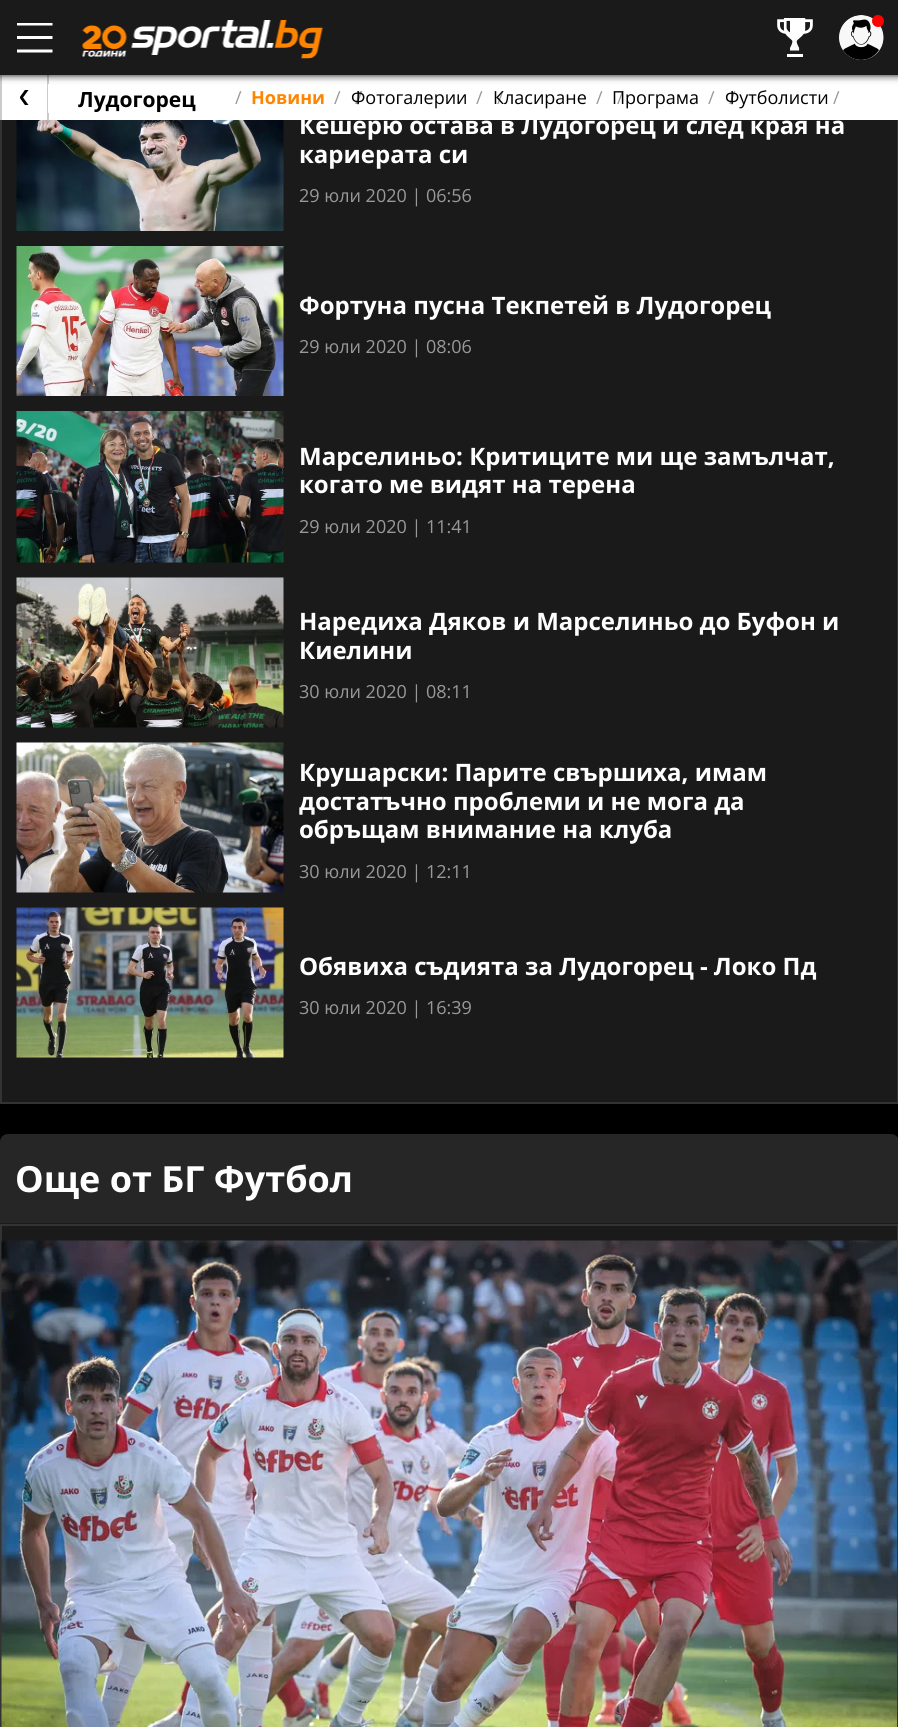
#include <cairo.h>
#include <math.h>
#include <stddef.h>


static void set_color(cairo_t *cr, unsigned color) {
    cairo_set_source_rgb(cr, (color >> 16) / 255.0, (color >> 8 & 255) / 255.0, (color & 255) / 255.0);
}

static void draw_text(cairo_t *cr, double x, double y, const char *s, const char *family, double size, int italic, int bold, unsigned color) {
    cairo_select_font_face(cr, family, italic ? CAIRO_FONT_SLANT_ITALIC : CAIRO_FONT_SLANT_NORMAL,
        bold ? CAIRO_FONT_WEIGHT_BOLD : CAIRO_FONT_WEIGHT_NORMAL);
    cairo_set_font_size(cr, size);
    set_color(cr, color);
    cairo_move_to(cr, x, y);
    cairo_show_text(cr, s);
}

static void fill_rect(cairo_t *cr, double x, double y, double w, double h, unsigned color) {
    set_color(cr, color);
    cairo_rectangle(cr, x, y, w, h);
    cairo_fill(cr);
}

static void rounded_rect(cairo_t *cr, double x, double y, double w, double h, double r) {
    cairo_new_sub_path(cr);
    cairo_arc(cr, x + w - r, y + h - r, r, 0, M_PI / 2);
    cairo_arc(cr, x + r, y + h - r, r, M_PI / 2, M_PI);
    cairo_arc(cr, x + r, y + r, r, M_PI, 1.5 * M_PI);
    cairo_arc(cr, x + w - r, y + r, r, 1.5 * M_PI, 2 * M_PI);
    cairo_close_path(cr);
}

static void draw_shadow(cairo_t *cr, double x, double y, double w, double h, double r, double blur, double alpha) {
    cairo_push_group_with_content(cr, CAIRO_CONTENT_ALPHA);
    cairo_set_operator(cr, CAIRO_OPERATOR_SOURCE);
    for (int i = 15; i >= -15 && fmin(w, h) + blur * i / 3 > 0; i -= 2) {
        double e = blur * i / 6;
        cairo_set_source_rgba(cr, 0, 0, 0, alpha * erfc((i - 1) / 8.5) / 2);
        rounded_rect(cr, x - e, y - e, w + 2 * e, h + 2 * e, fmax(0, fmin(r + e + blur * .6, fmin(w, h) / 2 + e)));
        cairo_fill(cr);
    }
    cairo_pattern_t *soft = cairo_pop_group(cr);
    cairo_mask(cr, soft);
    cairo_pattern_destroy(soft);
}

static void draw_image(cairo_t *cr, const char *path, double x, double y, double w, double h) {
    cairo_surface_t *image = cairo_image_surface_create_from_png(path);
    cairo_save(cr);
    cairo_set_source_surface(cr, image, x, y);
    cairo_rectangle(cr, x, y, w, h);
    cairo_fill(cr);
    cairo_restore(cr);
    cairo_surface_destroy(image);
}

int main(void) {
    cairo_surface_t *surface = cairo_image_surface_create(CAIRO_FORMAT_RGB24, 898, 1727);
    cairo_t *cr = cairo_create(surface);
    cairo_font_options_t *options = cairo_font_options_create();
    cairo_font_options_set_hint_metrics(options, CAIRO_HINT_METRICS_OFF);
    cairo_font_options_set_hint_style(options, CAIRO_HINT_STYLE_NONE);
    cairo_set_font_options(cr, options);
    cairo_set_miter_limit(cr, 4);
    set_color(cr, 0x000000);
    cairo_paint(cr);
    fill_rect(cr, 2, 120, 895, 982, 0x1A1A1A);
    cairo_rectangle(cr, 1, -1, 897, 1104);
    set_color(cr, 0x333333);
    cairo_stroke(cr);
    fill_rect(cr, 2, 75, 896, 45, 0xFFFFFF);
    fill_rect(cr, 47, 75, 2, 45, 0xCCCCCC);
    fill_rect(cr, 0, 75, 2, 45, 0xCCCCCC);
    fill_rect(cr, 48, 84, 1, 29, 0xFFFFFF);
    set_color(cr, 0x000000);
    draw_shadow(cr, 0, 0, 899, 75, 0, 4, 0.99);
    fill_rect(cr, 0, 0, 898, 75, 0x1A1A1A);
    cairo_save(cr);
    cairo_rectangle(cr, 17, 23, 36, 30);
    cairo_clip(cr);
    set_color(cr, 0xFFFFFF);
    cairo_set_fill_rule(cr, CAIRO_FILL_RULE_EVEN_ODD);
    cairo_new_path(cr);
    cairo_move_to(cr, 16.5, 36);
    cairo_line_to(cr, 52.5, 36);
    cairo_line_to(cr, 52.5, 39);
    cairo_line_to(cr, 16.5, 39);
    cairo_close_path(cr);
    cairo_move_to(cr, 16.5, 22.5);
    cairo_line_to(cr, 52.5, 22.5);
    cairo_line_to(cr, 52.5, 25.5);
    cairo_line_to(cr, 16.5, 25.5);
    cairo_close_path(cr);
    cairo_move_to(cr, 16.5, 49.5);
    cairo_line_to(cr, 52.5, 49.5);
    cairo_line_to(cr, 52.5, 52.5);
    cairo_line_to(cr, 16.5, 52.5);
    cairo_close_path(cr);
    cairo_fill(cr);
    cairo_restore(cr);
    draw_image(cr, "assets/img1.png", 82, 20, 241, 39);
    draw_image(cr, "assets/img2.png", 777, 18, 36, 39);
    draw_image(cr, "assets/img3.png", 839, 15, 45, 45);
    set_color(cr, 0xFF0000);
    cairo_arc(cr, 878, 21, 6, 0, 2 * M_PI);
    cairo_fill(cr);
    draw_image(cr, "assets/img4.png", 20, 90, 9, 15);
    draw_text(cr, 78, 107, "Лудогорец", "Open Sans", 21, 0, 1, 0x000000);
    draw_text(cr, 235, 104, "/", "Open Sans", 18, 0, 0, 0x999999);
    draw_text(cr, 251, 104, "Новини", "Open Sans", 18, 0, 1, 0xFF8400);
    draw_text(cr, 355, 104, "/", "Open Sans", 18, 0, 1, 0x999999);
    draw_text(cr, 334, 104, "/", "Open Sans", 18, 0, 0, 0x999999);
    draw_text(cr, 351, 104, "Фотогалерии", "Open Sans", 18, 0, 0, 0x000000);
    draw_text(cr, 497, 104, "/", "Open Sans", 18, 0, 0, 0x999999);
    draw_text(cr, 476, 104, "/", "Open Sans", 18, 0, 0, 0x999999);
    draw_text(cr, 493, 104, "Класиране", "Open Sans", 18, 0, 0, 0x000000);
    draw_text(cr, 617, 104, "/", "Open Sans", 18, 0, 0, 0x999999);
    draw_text(cr, 596, 104, "/", "Open Sans", 18, 0, 0, 0x999999);
    draw_text(cr, 612, 104, "Програма", "Open Sans", 18, 0, 0, 0x000000);
    draw_text(cr, 729, 104, "/", "Open Sans", 18, 0, 0, 0x999999);
    draw_text(cr, 708, 104, "/", "Open Sans", 18, 0, 0, 0x999999);
    draw_text(cr, 725, 104, "Футболисти", "Open Sans", 18, 0, 0, 0x000000);
    draw_text(cr, 833, 104, "/", "Open Sans", 18, 0, 0, 0x999999);
    draw_image(cr, "assets/img5.png", 16, 120, 268, 111);
    draw_text(cr, 299, 134, "Кешерю остава в Лудогорец и след края на", "Open Sans", 24, 0, 1, 0xFFFFFF);
    draw_text(cr, 299, 163, "кариерата си", "Open Sans", 24, 0, 1, 0xFFFFFF);
    draw_text(cr, 299, 202, "29 юли 2020 | 06:56", "Open Sans", 18, 0, 0, 0x999999);
    draw_image(cr, "assets/img6.png", 16, 246, 268, 150);
    draw_text(cr, 299, 314, "Фортуна пусна Текпетей в Лудогорец", "Open Sans", 24, 0, 1, 0xFFFFFF);
    draw_text(cr, 299, 353, "29 юли 2020 | 08:06", "Open Sans", 18, 0, 0, 0x999999);
    draw_image(cr, "assets/img7.png", 16, 411, 268, 152);
    draw_text(cr, 299, 465, "Марселиньо: Критиците ми ще замълчат,", "Open Sans", 24, 0, 1, 0xFFFFFF);
    draw_text(cr, 299, 493, "когато ме видят на терена", "Open Sans", 24, 0, 1, 0xFFFFFF);
    draw_text(cr, 299, 533, "29 юли 2020 | 11:41", "Open Sans", 18, 0, 0, 0x999999);
    draw_image(cr, "assets/img8.png", 16, 577, 268, 151);
    draw_text(cr, 299, 630, "Наредиха Дяков и Марселиньо до Буфон и", "Open Sans", 24, 0, 1, 0xFFFFFF);
    draw_text(cr, 299, 659, "Киелини", "Open Sans", 24, 0, 1, 0xFFFFFF);
    draw_text(cr, 299, 698, "30 юли 2020 | 08:11", "Open Sans", 18, 0, 0, 0x999999);
    draw_image(cr, "assets/img9.png", 16, 742, 268, 151);
    draw_text(cr, 299, 781, "Крушарски: Парите свършиха, имам", "Open Sans", 24, 0, 1, 0xFFFFFF);
    draw_text(cr, 299, 810, "достатъчно проблеми и не мога да", "Open Sans", 24, 0, 1, 0xFFFFFF);
    draw_text(cr, 299, 838, "обръщам внимание на клуба", "Open Sans", 24, 0, 1, 0xFFFFFF);
    draw_text(cr, 299, 878, "30 юли 2020 | 12:11", "Open Sans", 18, 0, 0, 0x999999);
    draw_image(cr, "assets/img10.png", 16, 907, 268, 151);
    draw_text(cr, 299, 975, "Обявиха съдията за Лудогорец - Локо Пд", "Open Sans", 24, 0, 1, 0xFFFFFF);
    draw_text(cr, 299, 1014, "30 юли 2020 | 16:39", "Open Sans", 18, 0, 0, 0x999999);
    set_color(cr, 0x262626);
    cairo_new_path(cr);
    cairo_move_to(cr, 8, 1134);
    cairo_line_to(cr, 891, 1134);
    cairo_curve_to(cr, 895.5, 1134, 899, 1137.5, 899, 1142);
    cairo_line_to(cr, 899, 1224);
    cairo_line_to(cr, 0, 1224);
    cairo_line_to(cr, 0, 1142);
    cairo_curve_to(cr, 0, 1137.5, 3.5, 1134, 8, 1134);
    cairo_close_path(cr);
    cairo_fill(cr);
    fill_rect(cr, 0, 1223, 898, 1, 0x1A1A1A);
    draw_text(cr, 15, 1192, "Още от БГ Футбол", "Open Sans", 36, 0, 1, 0xFFFFFF);
    fill_rect(cr, 2, 1226, 895, 15, 0x1A1A1A);
    cairo_rectangle(cr, 1, 1225, 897, 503);
    set_color(cr, 0x333333);
    cairo_stroke(cr);
    draw_image(cr, "assets/img11.png", 1, 1240, 896, 487);
    cairo_surface_write_to_png(surface, "output.png");
    cairo_font_options_destroy(options);
    cairo_destroy(cr);
    cairo_surface_destroy(surface);
    return 0;
}
